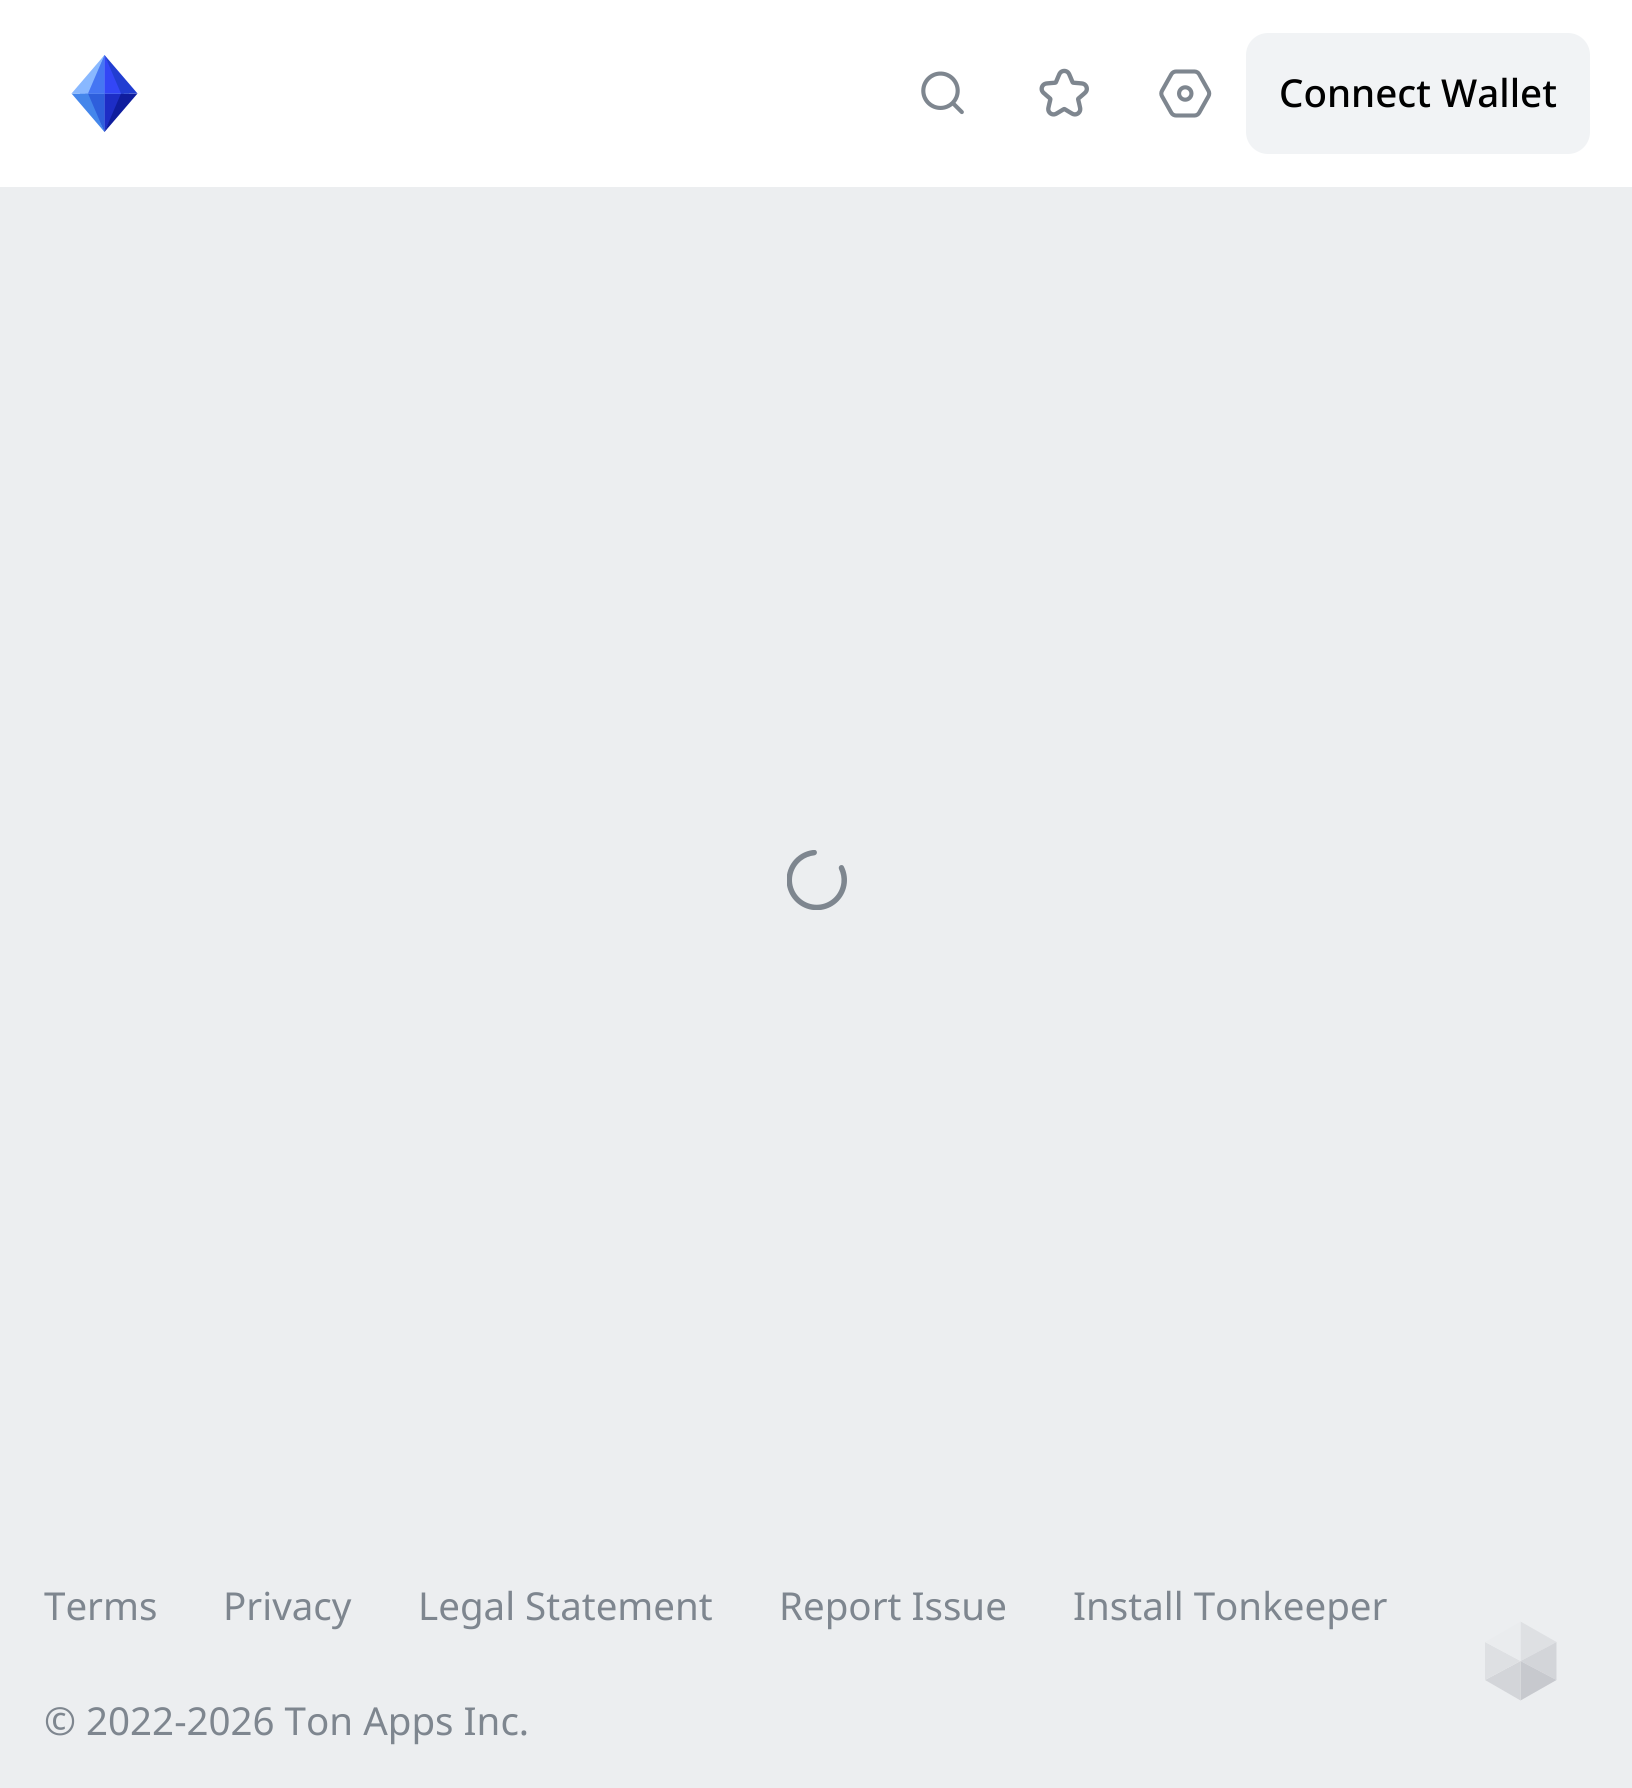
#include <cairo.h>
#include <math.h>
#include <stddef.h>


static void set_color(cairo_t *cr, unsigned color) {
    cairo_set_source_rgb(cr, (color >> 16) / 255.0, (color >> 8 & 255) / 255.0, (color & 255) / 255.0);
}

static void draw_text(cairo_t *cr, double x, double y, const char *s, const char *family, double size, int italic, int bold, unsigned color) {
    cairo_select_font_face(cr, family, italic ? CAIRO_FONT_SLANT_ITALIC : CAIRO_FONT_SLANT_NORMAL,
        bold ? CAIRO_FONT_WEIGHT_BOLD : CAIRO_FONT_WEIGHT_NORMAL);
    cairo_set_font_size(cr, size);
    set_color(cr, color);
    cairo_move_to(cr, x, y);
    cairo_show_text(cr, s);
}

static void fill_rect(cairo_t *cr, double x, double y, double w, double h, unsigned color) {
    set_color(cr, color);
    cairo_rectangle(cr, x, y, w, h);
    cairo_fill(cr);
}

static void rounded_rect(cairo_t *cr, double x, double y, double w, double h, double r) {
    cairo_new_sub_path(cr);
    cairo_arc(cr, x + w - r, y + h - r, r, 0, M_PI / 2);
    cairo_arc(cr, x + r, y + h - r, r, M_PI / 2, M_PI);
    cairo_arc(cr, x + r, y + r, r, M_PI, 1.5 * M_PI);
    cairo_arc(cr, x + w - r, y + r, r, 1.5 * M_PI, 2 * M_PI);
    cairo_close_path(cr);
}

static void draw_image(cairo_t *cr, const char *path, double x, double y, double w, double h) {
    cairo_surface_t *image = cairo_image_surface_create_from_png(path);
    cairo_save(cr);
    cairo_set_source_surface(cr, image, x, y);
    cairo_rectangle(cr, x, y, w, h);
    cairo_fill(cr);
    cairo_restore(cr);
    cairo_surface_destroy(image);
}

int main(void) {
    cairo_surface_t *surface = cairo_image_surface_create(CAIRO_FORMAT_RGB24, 1632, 1788);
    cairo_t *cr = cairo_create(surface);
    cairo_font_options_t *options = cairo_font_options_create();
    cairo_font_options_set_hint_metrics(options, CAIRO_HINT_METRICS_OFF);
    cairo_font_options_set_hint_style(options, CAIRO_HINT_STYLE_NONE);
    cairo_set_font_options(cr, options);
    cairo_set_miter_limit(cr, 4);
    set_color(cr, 0xECEEF0);
    cairo_paint(cr);
    fill_rect(cr, 0, 0, 1632, 187, 0xFFFFFF);
    draw_image(cr, "assets/img1.png", 71, 55, 67, 77);
    draw_image(cr, "assets/img2.png", 921, 71, 43, 44);
    draw_image(cr, "assets/img3.png", 1039, 68, 50, 49);
    draw_image(cr, "assets/img4.png", 1159, 69, 53, 49);
    set_color(cr, 0xF1F3F5);
    rounded_rect(cr, 1246, 33, 344, 121, 22);
    cairo_fill(cr);
    draw_text(cr, 1279, 107, "Connect Wallet", "Noto Sans Medium", 38.5, 0, 0, 0x000000);
    draw_image(cr, "assets/img5.png", 787, 850, 60, 60);
    set_color(cr, 0xDEE0E3);
    cairo_new_path(cr);
    cairo_move_to(cr, 1520.5, 1621.5);
    cairo_line_to(cr, 1556.5, 1642);
    cairo_line_to(cr, 1520.5, 1661);
    cairo_close_path(cr);
    cairo_fill(cr);
    set_color(cr, 0xD3D5D9);
    cairo_new_path(cr);
    cairo_move_to(cr, 1556.5, 1642);
    cairo_line_to(cr, 1556.5, 1680);
    cairo_line_to(cr, 1520.5, 1661);
    cairo_close_path(cr);
    cairo_fill(cr);
    set_color(cr, 0xC7C9CE);
    cairo_new_path(cr);
    cairo_move_to(cr, 1556.5, 1680);
    cairo_line_to(cr, 1520.5, 1700.5);
    cairo_line_to(cr, 1520.5, 1661);
    cairo_close_path(cr);
    cairo_fill(cr);
    set_color(cr, 0xD3D5D9);
    cairo_new_path(cr);
    cairo_move_to(cr, 1520.5, 1700.5);
    cairo_line_to(cr, 1485, 1680);
    cairo_line_to(cr, 1520.5, 1661);
    cairo_close_path(cr);
    cairo_fill(cr);
    set_color(cr, 0xDEE0E3);
    cairo_new_path(cr);
    cairo_move_to(cr, 1485, 1680);
    cairo_line_to(cr, 1485, 1642);
    cairo_line_to(cr, 1520.5, 1661);
    cairo_close_path(cr);
    cairo_fill(cr);
    set_color(cr, 0xEAECEE);
    cairo_new_path(cr);
    cairo_move_to(cr, 1485, 1642);
    cairo_line_to(cr, 1520.5, 1621.5);
    cairo_line_to(cr, 1520.5, 1661);
    cairo_close_path(cr);
    cairo_fill(cr);
    draw_text(cr, 44, 1620, "Terms", "Noto Sans", 38.5, 0, 0, 0x7E868F);
    draw_text(cr, 223, 1620, "Privacy", "Noto Sans", 38.5, 0, 0, 0x7E868F);
    draw_text(cr, 418, 1620, "Legal Statement", "Noto Sans", 38.5, 0, 0, 0x7E868F);
    draw_text(cr, 779, 1620, "Report Issue", "Noto Sans", 38.5, 0, 0, 0x7E868F);
    draw_text(cr, 1073, 1620, "Install Tonkeeper", "Noto Sans", 38.5, 0, 0, 0x7E868F);
    draw_text(cr, 44, 1735, "© 2022-2026 Ton Apps Inc.", "Noto Sans", 38.5, 0, 0, 0x7E868F);
    cairo_surface_write_to_png(surface, "output.png");
    cairo_font_options_destroy(options);
    cairo_destroy(cr);
    cairo_surface_destroy(surface);
    return 0;
}
